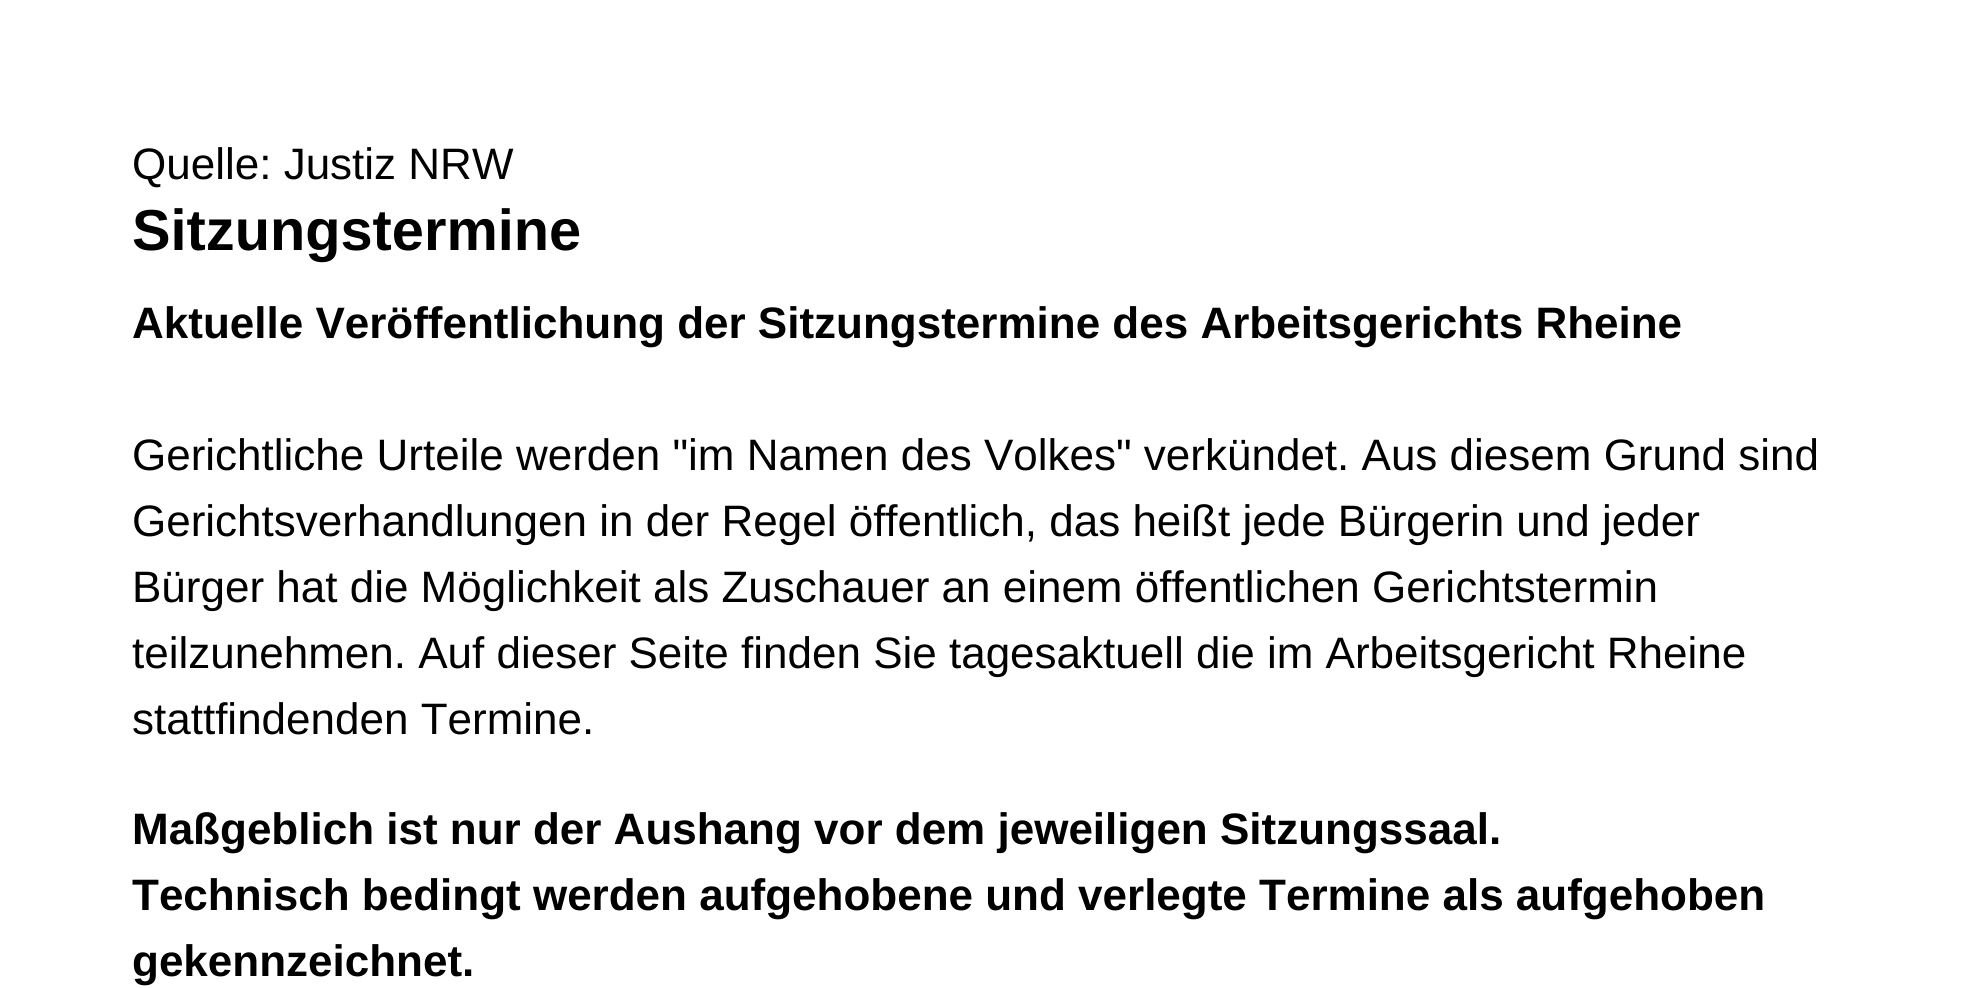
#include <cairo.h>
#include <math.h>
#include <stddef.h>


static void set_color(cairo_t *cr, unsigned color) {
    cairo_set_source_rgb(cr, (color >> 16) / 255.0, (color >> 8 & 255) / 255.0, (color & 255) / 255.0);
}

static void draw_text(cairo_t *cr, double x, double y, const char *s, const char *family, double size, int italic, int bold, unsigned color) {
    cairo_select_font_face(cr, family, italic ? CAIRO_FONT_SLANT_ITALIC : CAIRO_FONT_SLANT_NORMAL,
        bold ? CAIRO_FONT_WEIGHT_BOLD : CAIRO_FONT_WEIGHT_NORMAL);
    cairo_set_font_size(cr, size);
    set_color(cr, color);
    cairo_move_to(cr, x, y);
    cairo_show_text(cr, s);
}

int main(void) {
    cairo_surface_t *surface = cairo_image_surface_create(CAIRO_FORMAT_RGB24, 1970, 988);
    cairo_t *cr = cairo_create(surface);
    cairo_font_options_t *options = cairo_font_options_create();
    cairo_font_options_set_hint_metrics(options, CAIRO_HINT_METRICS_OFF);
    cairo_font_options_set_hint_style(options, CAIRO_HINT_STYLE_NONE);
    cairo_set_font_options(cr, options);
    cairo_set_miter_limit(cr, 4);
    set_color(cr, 0xFFFFFF);
    cairo_paint(cr);
    draw_text(cr, 132, 179, "Quelle: Justiz NRW", "Liberation Sans", 44, 0, 0, 0x000000);
    draw_text(cr, 132, 250, "Sitzungstermine", "Liberation Sans", 57.75, 0, 1, 0x000000);
    draw_text(cr, 132, 338, "Aktuelle Veröffentlichung der Sitzungstermine des Arbeitsgerichts Rheine", "Liberation Sans", 44, 0, 1, 0x000000);
    draw_text(cr, 132, 470, "Gerichtliche Urteile werden \"im Namen des Volkes\" verkündet. Aus diesem Grund sind", "Liberation Sans", 44, 0, 0, 0x000000);
    draw_text(cr, 132, 536, "Gerichtsverhandlungen in der Regel öffentlich, das heißt jede Bürgerin und jeder", "Liberation Sans", 44, 0, 0, 0x000000);
    draw_text(cr, 132, 602, "Bürger hat die Möglichkeit als Zuschauer an einem öffentlichen Gerichtstermin", "Liberation Sans", 44, 0, 0, 0x000000);
    draw_text(cr, 132, 668, "teilzunehmen. Auf dieser Seite finden Sie tagesaktuell die im Arbeitsgericht Rheine", "Liberation Sans", 44, 0, 0, 0x000000);
    draw_text(cr, 132, 734, "stattfindenden Termine.", "Liberation Sans", 44, 0, 0, 0x000000);
    draw_text(cr, 132, 844, "Maßgeblich ist nur der Aushang vor dem jeweiligen Sitzungssaal.", "Liberation Sans", 44, 0, 1, 0x000000);
    draw_text(cr, 132, 910, "Technisch bedingt werden aufgehobene und verlegte Termine als aufgehoben", "Liberation Sans", 44, 0, 1, 0x000000);
    draw_text(cr, 132, 976, "gekennzeichnet.", "Liberation Sans", 44, 0, 1, 0x000000);
    cairo_surface_write_to_png(surface, "output.png");
    cairo_font_options_destroy(options);
    cairo_destroy(cr);
    cairo_surface_destroy(surface);
    return 0;
}
